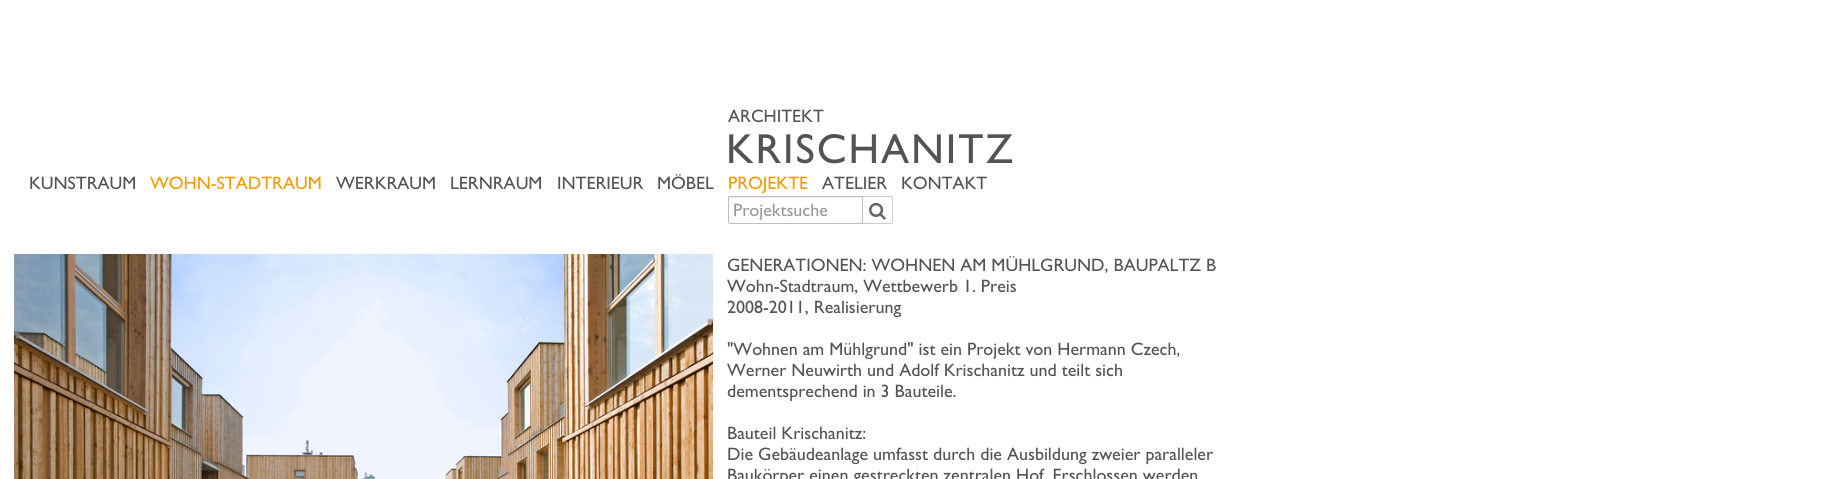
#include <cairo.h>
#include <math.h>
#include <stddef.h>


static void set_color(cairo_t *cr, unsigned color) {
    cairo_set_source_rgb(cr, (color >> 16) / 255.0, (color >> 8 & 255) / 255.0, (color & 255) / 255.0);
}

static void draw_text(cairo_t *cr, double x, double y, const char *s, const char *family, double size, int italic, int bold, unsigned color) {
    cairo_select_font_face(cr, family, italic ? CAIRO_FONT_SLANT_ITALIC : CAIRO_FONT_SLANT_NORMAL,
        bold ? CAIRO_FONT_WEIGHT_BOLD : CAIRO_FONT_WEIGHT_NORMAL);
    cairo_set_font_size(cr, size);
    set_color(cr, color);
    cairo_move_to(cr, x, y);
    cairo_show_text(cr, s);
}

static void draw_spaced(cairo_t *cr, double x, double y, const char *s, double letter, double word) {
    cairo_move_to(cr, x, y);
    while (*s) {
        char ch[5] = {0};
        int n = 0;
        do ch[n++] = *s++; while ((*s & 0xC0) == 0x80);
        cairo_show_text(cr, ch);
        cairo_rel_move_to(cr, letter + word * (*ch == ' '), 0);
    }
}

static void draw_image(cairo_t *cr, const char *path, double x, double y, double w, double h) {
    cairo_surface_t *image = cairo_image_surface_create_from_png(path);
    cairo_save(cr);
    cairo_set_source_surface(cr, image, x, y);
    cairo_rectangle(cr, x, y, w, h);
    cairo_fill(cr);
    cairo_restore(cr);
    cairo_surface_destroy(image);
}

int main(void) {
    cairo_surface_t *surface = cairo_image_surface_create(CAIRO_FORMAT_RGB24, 1824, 479);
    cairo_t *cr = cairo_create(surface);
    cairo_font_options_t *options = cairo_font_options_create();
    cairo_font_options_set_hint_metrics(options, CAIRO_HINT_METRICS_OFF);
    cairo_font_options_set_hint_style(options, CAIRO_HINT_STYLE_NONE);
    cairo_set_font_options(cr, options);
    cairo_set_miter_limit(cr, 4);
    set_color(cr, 0xFFFFFF);
    cairo_paint(cr);
    draw_text(cr, 29, 189, "KUNSTRAUM", "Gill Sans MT", 18, 0, 0, 0x535255);
    draw_text(cr, 150, 189, "WOHN-STADTRAUM", "Gill Sans MT", 18, 0, 0, 0xFF9900);
    draw_text(cr, 336, 189, "WERKRAUM", "Gill Sans MT", 18, 0, 0, 0x535255);
    draw_text(cr, 450, 189, "LERNRAUM", "Gill Sans MT", 18, 0, 0, 0x535255);
    draw_text(cr, 557, 189, "INTERIEUR", "Gill Sans MT", 18, 0, 0, 0x535255);
    draw_text(cr, 657, 189, "MÖBEL", "Gill Sans MT", 18, 0, 0, 0x535255);
    draw_text(cr, 728, 122, "ARCHITEKT", "Gill Sans MT", 18, 0, 0, 0x535255);
    cairo_set_font_size(cr, 42);
    draw_spaced(cr, 726, 163, "KRISCHANITZ", 2, 0);
    draw_text(cr, 728, 189, "PROJEKTE", "Gill Sans MT", 18, 0, 0, 0xFF9900);
    draw_text(cr, 822, 189, "ATELIER", "Gill Sans MT", 18, 0, 0, 0x535255);
    draw_text(cr, 901, 189, "KONTAKT", "Gill Sans MT", 18, 0, 0, 0x535255);
    cairo_new_path(cr);
    cairo_move_to(cr, 862.5, 196.5);
    cairo_line_to(cr, 891, 196.5);
    cairo_curve_to(cr, 892, 196.5, 892.5, 197, 892.5, 198);
    cairo_line_to(cr, 892.5, 222);
    cairo_curve_to(cr, 892.5, 223, 892, 223.5, 891, 223.5);
    cairo_line_to(cr, 862.5, 223.5);
    cairo_close_path(cr);
    set_color(cr, 0xCCCCCC);
    cairo_set_line_width(cr, 1);
    cairo_stroke(cr);
    set_color(cr, 0xFFFFFF);
    cairo_new_path(cr);
    cairo_move_to(cr, 730, 196);
    cairo_line_to(cr, 863, 196);
    cairo_line_to(cr, 863, 224);
    cairo_line_to(cr, 730, 224);
    cairo_curve_to(cr, 729, 224, 728, 223, 728, 222);
    cairo_line_to(cr, 728, 198);
    cairo_curve_to(cr, 728, 197, 729, 196, 730, 196);
    cairo_close_path(cr);
    cairo_fill(cr);
    set_color(cr, 0xECECEC);
    cairo_new_path(cr);
    cairo_move_to(cr, 730, 198);
    cairo_line_to(cr, 862, 198);
    cairo_line_to(cr, 862, 197);
    cairo_line_to(cr, 730, 197);
    cairo_line_to(cr, 729, 199);
    cairo_curve_to(cr, 729, 198, 729, 198, 730, 198);
    cairo_close_path(cr);
    cairo_fill(cr);
    cairo_new_path(cr);
    cairo_move_to(cr, 730, 196.5);
    cairo_line_to(cr, 862.5, 196.5);
    cairo_line_to(cr, 862.5, 223.5);
    cairo_line_to(cr, 730, 223.5);
    cairo_curve_to(cr, 729, 223.5, 728.5, 223, 728.5, 222);
    cairo_line_to(cr, 728.5, 198);
    cairo_curve_to(cr, 728.5, 197, 729, 196.5, 730, 196.5);
    cairo_close_path(cr);
    set_color(cr, 0xC0C0C0);
    cairo_stroke(cr);
    draw_text(cr, 733, 216, "Projektsuche", "Gill Sans MT", 18, 0, 0, 0x999999);
    draw_image(cr, "assets/img1.png", 869, 202, 17, 18);
    draw_image(cr, "assets/img2.png", 14, 254, 699, 225);
    draw_text(cr, 727, 271, "GENERATIONEN: WOHNEN AM MÜHLGRUND, BAUPALTZ B", "Gill Sans MT", 18, 0, 0, 0x535255);
    draw_text(cr, 727, 292, "Wohn-Stadtraum, Wettbewerb 1. Preis", "Gill Sans MT", 18, 0, 0, 0x535255);
    draw_text(cr, 727, 313, "2008-2011, Realisierung", "Gill Sans MT", 18, 0, 0, 0x535255);
    draw_text(cr, 727, 355, "\"Wohnen am Mühlgrund\" ist ein Projekt von Hermann Czech,", "Gill Sans MT", 18, 0, 0, 0x535255);
    draw_text(cr, 727, 376, "Werner Neuwirth und Adolf Krischanitz und teilt sich", "Gill Sans MT", 18, 0, 0, 0x535255);
    draw_text(cr, 727, 397, "dementsprechend in 3 Bauteile.", "Gill Sans MT", 18, 0, 0, 0x535255);
    draw_text(cr, 727, 439, "Bauteil Krischanitz:", "Gill Sans MT", 18, 0, 0, 0x535255);
    draw_text(cr, 727, 460, "Die Gebäudeanlage umfasst durch die Ausbildung zweier paralleler", "Gill Sans MT", 18, 0, 0, 0x535255);
    draw_text(cr, 727, 481, "Baukörper einen gestreckten zentralen Hof. Erschlossen werden", "Gill Sans MT", 18, 0, 0, 0x535255);
    cairo_surface_write_to_png(surface, "output.png");
    cairo_font_options_destroy(options);
    cairo_destroy(cr);
    cairo_surface_destroy(surface);
    return 0;
}
